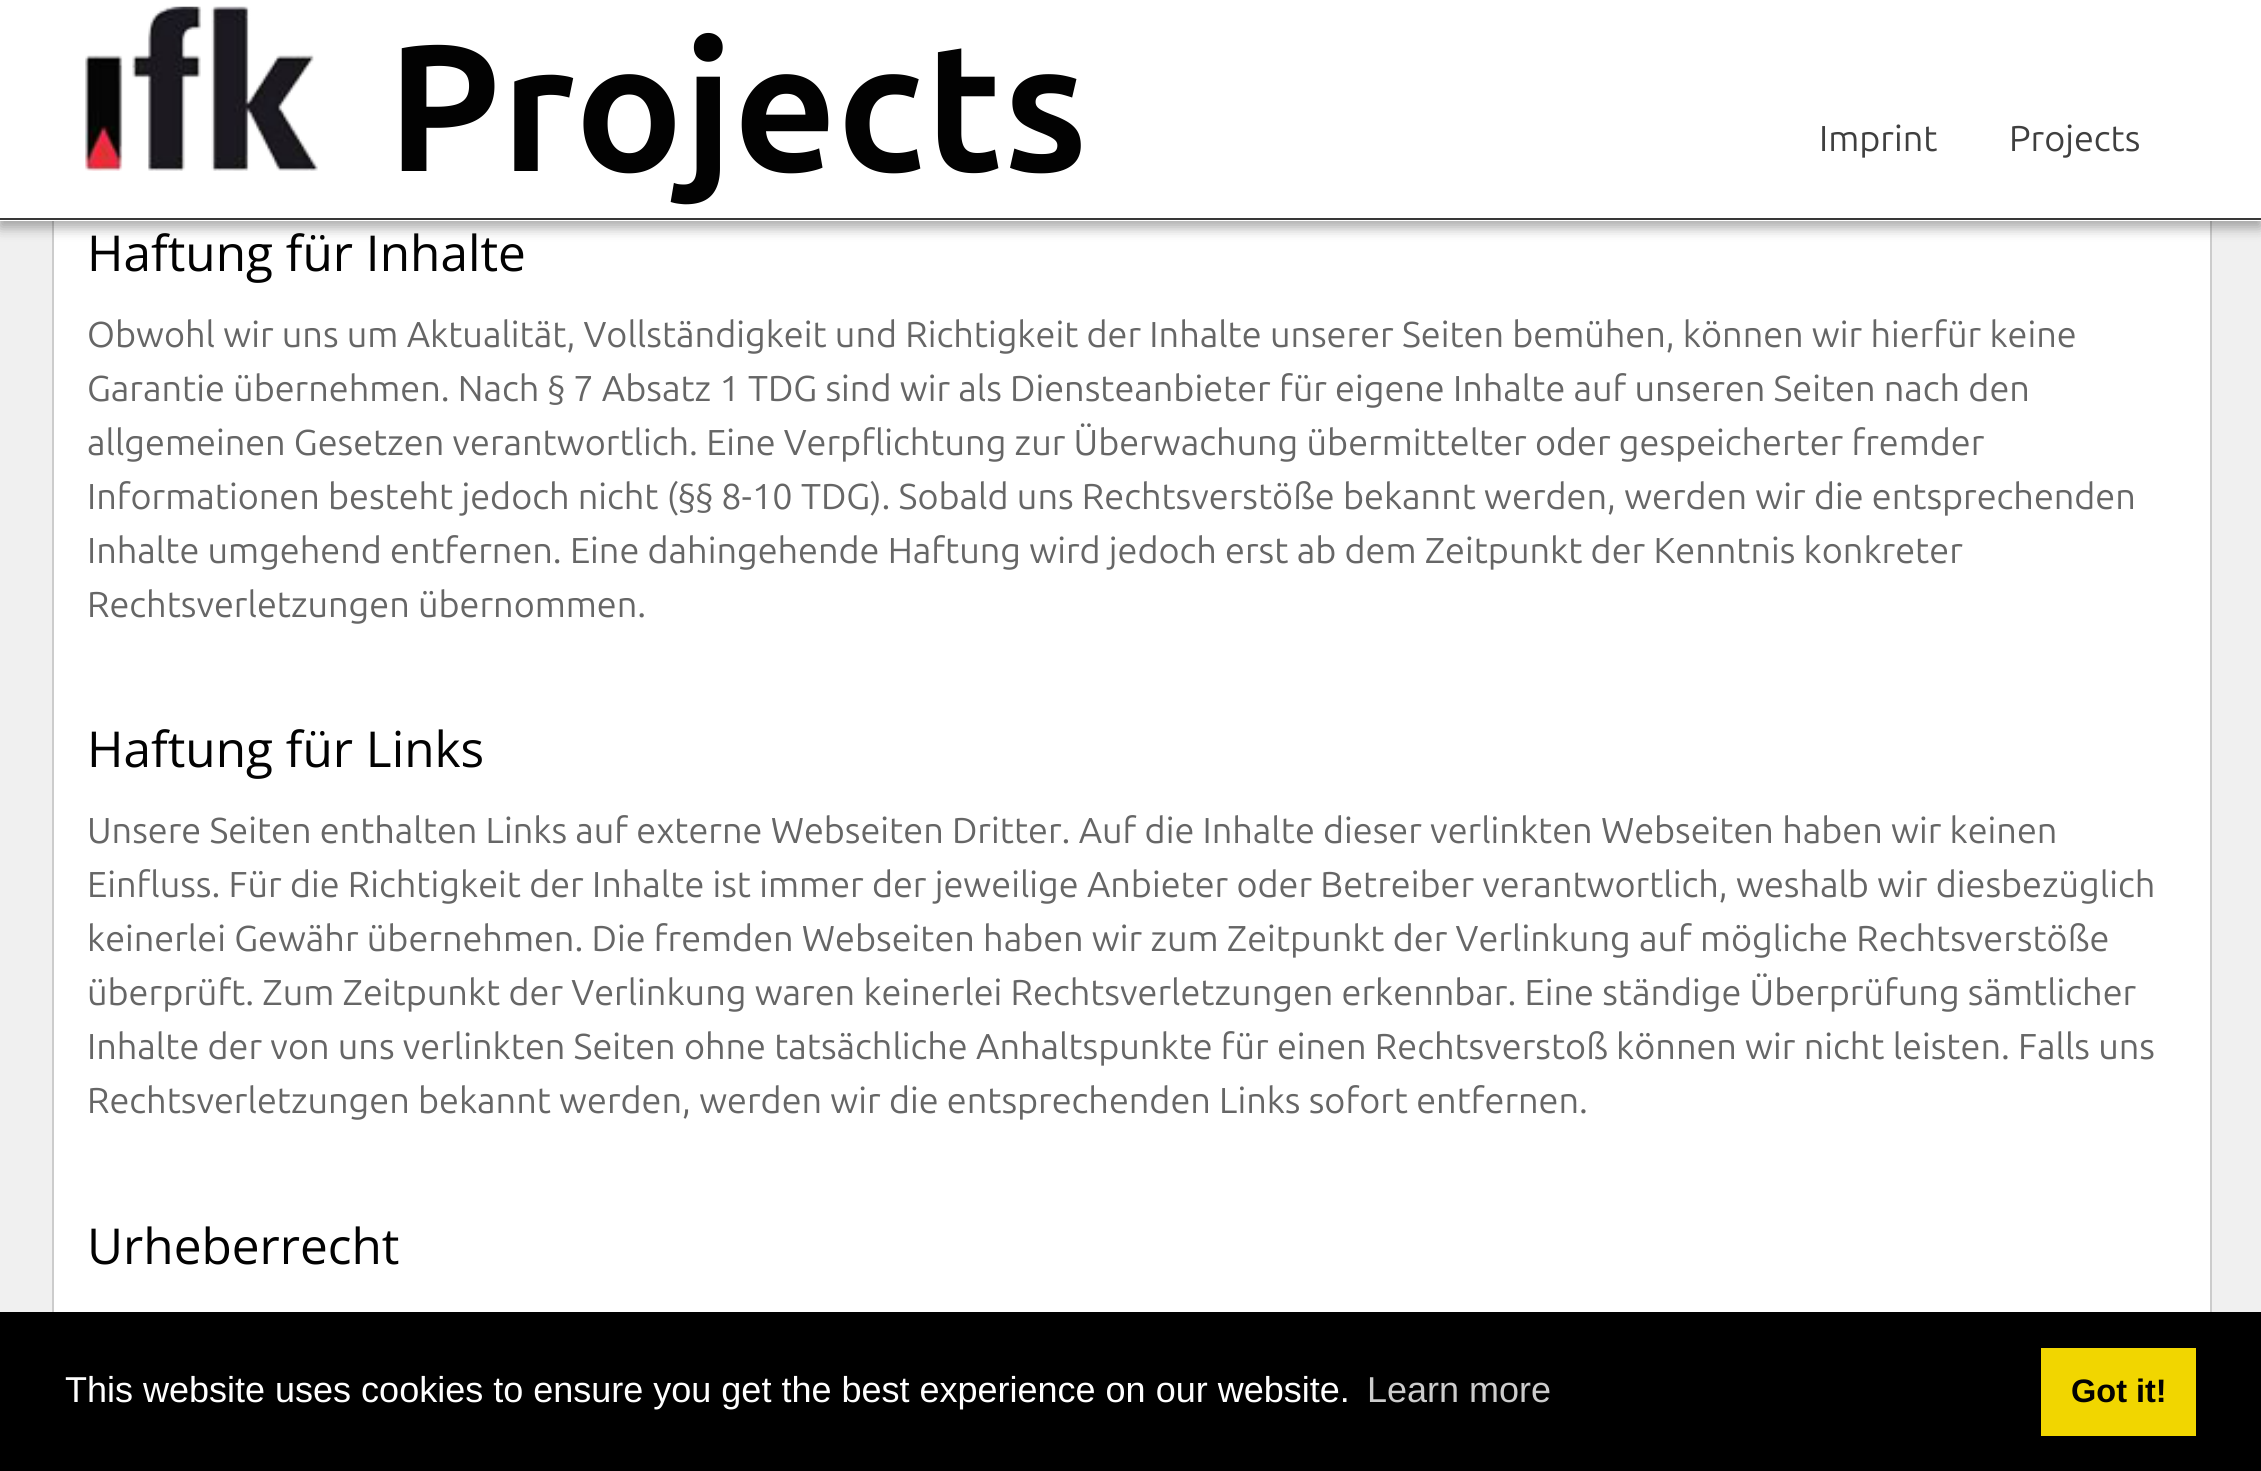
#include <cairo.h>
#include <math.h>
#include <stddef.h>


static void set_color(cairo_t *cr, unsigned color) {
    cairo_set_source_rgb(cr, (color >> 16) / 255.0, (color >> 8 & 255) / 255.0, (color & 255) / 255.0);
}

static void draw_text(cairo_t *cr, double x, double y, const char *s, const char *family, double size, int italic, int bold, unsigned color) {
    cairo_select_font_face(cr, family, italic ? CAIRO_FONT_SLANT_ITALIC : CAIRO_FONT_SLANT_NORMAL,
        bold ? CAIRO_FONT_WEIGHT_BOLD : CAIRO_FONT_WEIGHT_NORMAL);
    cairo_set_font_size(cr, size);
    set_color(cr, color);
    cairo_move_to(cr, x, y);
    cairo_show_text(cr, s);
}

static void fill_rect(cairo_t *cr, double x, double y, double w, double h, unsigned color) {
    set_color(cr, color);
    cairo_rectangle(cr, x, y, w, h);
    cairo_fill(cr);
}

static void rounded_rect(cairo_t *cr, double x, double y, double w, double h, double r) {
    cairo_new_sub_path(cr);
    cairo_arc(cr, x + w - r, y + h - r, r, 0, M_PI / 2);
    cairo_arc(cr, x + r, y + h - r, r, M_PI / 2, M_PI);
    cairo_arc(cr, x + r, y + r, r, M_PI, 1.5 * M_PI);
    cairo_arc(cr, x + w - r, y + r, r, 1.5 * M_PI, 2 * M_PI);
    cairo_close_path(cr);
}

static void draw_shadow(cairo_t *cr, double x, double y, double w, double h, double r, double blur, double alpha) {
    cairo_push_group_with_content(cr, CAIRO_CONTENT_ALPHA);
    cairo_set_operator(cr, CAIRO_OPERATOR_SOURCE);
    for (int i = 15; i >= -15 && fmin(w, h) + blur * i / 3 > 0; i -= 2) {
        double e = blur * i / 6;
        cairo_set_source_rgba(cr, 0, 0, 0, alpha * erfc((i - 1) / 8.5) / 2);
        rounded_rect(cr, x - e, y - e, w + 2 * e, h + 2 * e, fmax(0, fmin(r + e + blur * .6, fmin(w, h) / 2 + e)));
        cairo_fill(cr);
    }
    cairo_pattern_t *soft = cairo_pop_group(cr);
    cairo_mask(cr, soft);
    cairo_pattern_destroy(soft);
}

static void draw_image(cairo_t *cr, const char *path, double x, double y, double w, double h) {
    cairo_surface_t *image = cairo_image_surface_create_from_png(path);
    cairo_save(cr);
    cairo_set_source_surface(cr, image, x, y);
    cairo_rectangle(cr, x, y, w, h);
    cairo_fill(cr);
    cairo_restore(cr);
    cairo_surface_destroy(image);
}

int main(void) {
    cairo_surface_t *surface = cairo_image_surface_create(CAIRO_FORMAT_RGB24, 2261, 1471);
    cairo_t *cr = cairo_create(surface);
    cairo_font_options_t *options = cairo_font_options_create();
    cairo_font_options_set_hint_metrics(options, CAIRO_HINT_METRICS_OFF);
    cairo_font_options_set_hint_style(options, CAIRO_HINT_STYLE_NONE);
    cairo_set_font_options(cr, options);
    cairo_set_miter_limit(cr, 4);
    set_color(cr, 0xF0F0F0);
    cairo_paint(cr);
    fill_rect(cr, 54, 221, 2156, 1091, 0xFFFFFF);
    fill_rect(cr, 2210, 221, 2, 1091, 0xCCCCCC);
    fill_rect(cr, 52, 221, 2, 1091, 0xCCCCCC);
    set_color(cr, 0x000000);
    draw_shadow(cr, 0, 7, 2261, 220, 0, 7, 0.23);
    draw_shadow(cr, 0, 7, 2261, 220, 0, 7, 0.16);
    fill_rect(cr, 0, 0, 2261, 221, 0xFFFFFF);
    fill_rect(cr, 0, 218, 2261, 2, 0x383838);
    draw_image(cr, "assets/img1.png", 85, 6, 233, 165);
    draw_text(cr, 387, 171, "Projects", "Ubuntu", 180, 0, 1, 0x020202);
    draw_text(cr, 1819, 151, "Imprint", "Ubuntu", 36, 0, 0, 0x3F3F3F);
    draw_text(cr, 2009, 151, "Projects", "Ubuntu", 36, 0, 0, 0x3F3F3F);
    draw_text(cr, 87, 271, "Haftung für Inhalte", "Open Sans", 49.5, 0, 0, 0x020202);
    draw_text(cr, 87, 347, "Obwohl wir uns um Aktualität, Vollständigkeit und Richtigkeit der Inhalte unserer Seiten bemühen, können wir hierfür keine", "Ubuntu", 36, 0, 0, 0x666666);
    draw_text(cr, 87, 401, "Garantie übernehmen. Nach § 7 Absatz 1 TDG sind wir als Diensteanbieter für eigene Inhalte auf unseren Seiten nach den", "Ubuntu", 36, 0, 0, 0x666666);
    draw_text(cr, 87, 455, "allgemeinen Gesetzen verantwortlich. Eine Verpflichtung zur Überwachung übermittelter oder gespeicherter fremder", "Ubuntu", 36, 0, 0, 0x666666);
    draw_text(cr, 87, 509, "Informationen besteht jedoch nicht (§§ 8-10 TDG). Sobald uns Rechtsverstöße bekannt werden, werden wir die entsprechenden", "Ubuntu", 36, 0, 0, 0x666666);
    draw_text(cr, 87, 563, "Inhalte umgehend entfernen. Eine dahingehende Haftung wird jedoch erst ab dem Zeitpunkt der Kenntnis konkreter", "Ubuntu", 36, 0, 0, 0x666666);
    draw_text(cr, 87, 617, "Rechtsverletzungen übernommen.", "Ubuntu", 36, 0, 0, 0x666666);
    draw_text(cr, 87, 767, "Haftung für Links", "Open Sans", 49.5, 0, 0, 0x020202);
    draw_text(cr, 87, 843, "Unsere Seiten enthalten Links auf externe Webseiten Dritter. Auf die Inhalte dieser verlinkten Webseiten haben wir keinen", "Ubuntu", 36, 0, 0, 0x666666);
    draw_text(cr, 87, 897, "Einfluss. Für die Richtigkeit der Inhalte ist immer der jeweilige Anbieter oder Betreiber verantwortlich, weshalb wir diesbezüglich", "Ubuntu", 36, 0, 0, 0x666666);
    draw_text(cr, 87, 951, "keinerlei Gewähr übernehmen. Die fremden Webseiten haben wir zum Zeitpunkt der Verlinkung auf mögliche Rechtsverstöße", "Ubuntu", 36, 0, 0, 0x666666);
    draw_text(cr, 87, 1005, "überprüft. Zum Zeitpunkt der Verlinkung waren keinerlei Rechtsverletzungen erkennbar. Eine ständige Überprüfung sämtlicher", "Ubuntu", 36, 0, 0, 0x666666);
    draw_text(cr, 87, 1059, "Inhalte der von uns verlinkten Seiten ohne tatsächliche Anhaltspunkte für einen Rechtsverstoß können wir nicht leisten. Falls uns", "Ubuntu", 36, 0, 0, 0x666666);
    draw_text(cr, 87, 1113, "Rechtsverletzungen bekannt werden, werden wir die entsprechenden Links sofort entfernen.", "Ubuntu", 36, 0, 0, 0x666666);
    draw_text(cr, 87, 1264, "Urheberrecht", "Open Sans", 49.5, 0, 0, 0x020202);
    fill_rect(cr, 0, 1312, 2261, 159, 0x000000);
    draw_text(cr, 65, 1402, "This website uses cookies to ensure you get the best experience on our website.", "Liberation Sans", 36, 0, 0, 0xFFFFFF);
    draw_text(cr, 1367, 1402, "Learn more", "Liberation Sans", 36, 0, 0, 0xCCCCCC);
    fill_rect(cr, 2041, 1348, 155, 88, 0xF1D600);
    draw_text(cr, 2071, 1402, "Got it!", "Liberation Sans", 32.5, 0, 1, 0x020202);
    cairo_surface_write_to_png(surface, "output.png");
    cairo_font_options_destroy(options);
    cairo_destroy(cr);
    cairo_surface_destroy(surface);
    return 0;
}
